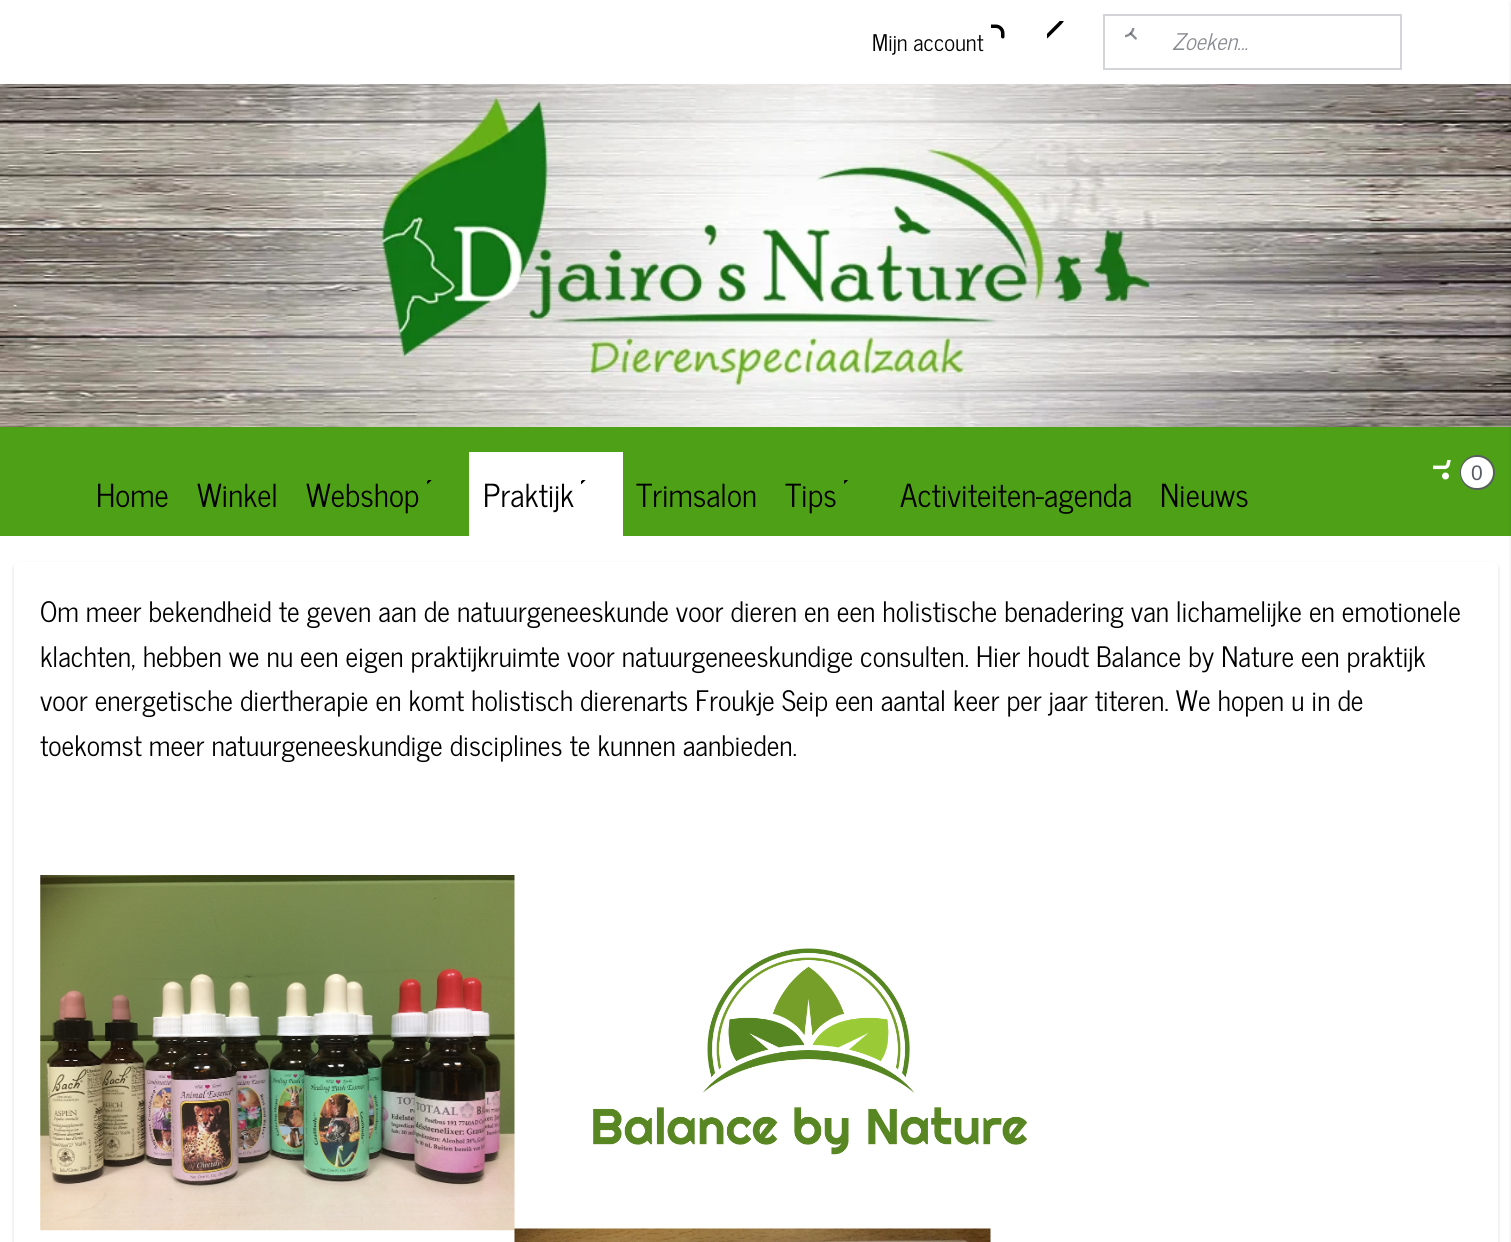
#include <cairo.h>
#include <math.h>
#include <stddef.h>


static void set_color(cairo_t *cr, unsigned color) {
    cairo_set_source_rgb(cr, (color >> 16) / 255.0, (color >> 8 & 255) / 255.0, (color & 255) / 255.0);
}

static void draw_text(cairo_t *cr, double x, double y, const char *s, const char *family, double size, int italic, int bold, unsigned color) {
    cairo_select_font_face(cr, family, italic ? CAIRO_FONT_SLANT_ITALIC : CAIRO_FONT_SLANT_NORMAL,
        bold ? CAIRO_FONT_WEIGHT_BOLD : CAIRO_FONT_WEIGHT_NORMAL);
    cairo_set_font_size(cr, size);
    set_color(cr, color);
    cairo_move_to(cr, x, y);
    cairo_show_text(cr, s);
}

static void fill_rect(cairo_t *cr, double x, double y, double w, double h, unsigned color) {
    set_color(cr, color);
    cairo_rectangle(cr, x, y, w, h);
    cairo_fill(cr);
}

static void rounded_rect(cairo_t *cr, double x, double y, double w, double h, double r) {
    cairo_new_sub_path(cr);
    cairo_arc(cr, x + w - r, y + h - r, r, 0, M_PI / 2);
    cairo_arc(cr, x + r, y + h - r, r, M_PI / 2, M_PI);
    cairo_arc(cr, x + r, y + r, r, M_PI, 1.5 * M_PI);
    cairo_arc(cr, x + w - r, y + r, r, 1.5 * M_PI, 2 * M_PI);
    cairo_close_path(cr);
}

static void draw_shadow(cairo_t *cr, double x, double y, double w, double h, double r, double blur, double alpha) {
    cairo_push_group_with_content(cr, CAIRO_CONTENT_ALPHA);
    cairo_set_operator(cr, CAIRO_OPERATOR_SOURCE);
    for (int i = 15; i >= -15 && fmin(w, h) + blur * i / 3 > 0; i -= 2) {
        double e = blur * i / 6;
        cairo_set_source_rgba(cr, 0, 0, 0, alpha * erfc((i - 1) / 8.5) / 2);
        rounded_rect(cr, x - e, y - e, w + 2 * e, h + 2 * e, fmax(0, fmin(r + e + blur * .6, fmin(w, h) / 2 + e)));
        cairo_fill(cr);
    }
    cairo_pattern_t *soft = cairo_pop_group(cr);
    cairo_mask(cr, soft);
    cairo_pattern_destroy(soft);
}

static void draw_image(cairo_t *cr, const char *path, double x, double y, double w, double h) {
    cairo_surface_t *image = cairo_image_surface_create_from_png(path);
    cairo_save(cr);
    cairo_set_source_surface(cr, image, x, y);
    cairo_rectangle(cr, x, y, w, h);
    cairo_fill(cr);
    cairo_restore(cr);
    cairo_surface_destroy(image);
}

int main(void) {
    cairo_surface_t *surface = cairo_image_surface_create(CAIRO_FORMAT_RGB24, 1511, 1242);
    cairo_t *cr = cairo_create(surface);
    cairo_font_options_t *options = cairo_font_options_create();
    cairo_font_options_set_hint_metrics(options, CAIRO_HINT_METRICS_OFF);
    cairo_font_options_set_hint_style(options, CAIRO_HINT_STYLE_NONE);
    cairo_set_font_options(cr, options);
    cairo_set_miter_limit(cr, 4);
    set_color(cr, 0xFFFFFF);
    cairo_paint(cr);
    draw_image(cr, "assets/img1.png", 1047, 21, 17, 18);
    draw_image(cr, "assets/img4.png", 0, 84, 1511, 343);
    fill_rect(cr, 0, 427, 1511, 109, 0x4EA116);
    set_color(cr, 0x000000);
    draw_shadow(cr, 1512, 2, 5, 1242, 0, 2, 0.2);
    draw_image(cr, "assets/img2.png", 991, 24, 14, 15);
    draw_text(cr, 872, 51, "Mijn account", "News Cycle", 22.75, 0, 0, 0x000000);
    cairo_rectangle(cr, 1104, 15, 297, 54);
    set_color(cr, 0xD3D5D9);
    cairo_stroke(cr);
    draw_image(cr, "assets/img3.png", 1125, 28, 12, 12);
    draw_text(cr, 1172, 50, "Zoeken...", "News Cycle", 22.75, 1, 0, 0x898C91);
    draw_image(cr, "assets/img5.png", 1433, 460, 18, 20);
    cairo_arc(cr, 1477.5, 472.5, 16.5, 0, 2 * M_PI);
    set_color(cr, 0x575B62);
    cairo_stroke(cr);
    set_color(cr, 0xFFFFFF);
    rounded_rect(cr, 1461, 457, 32, 31, 15.5);
    cairo_fill(cr);
    draw_text(cr, 1471, 480, "0", "Liberation Sans", 21, 0, 0, 0x575B62);
    draw_text(cr, 96, 507, "Home", "News Cycle", 31.5, 0, 0, 0x000000);
    draw_text(cr, 197, 507, "Winkel", "News Cycle", 31.5, 0, 0, 0x000000);
    draw_image(cr, "assets/img6.png", 427, 480, 5, 5);
    draw_text(cr, 306, 507, "Webshop", "News Cycle", 31.5, 0, 0, 0x000000);
    fill_rect(cr, 469, 452, 154, 84, 0xFFFFFF);
    draw_image(cr, "assets/img7.png", 581, 480, 5, 5);
    draw_text(cr, 483, 507, "Praktijk", "News Cycle", 31.5, 0, 0, 0x000000);
    draw_text(cr, 636, 507, "Trimsalon", "News Cycle", 31.5, 0, 0, 0x000000);
    draw_image(cr, "assets/img8.png", 844, 480, 4, 4);
    draw_text(cr, 785, 507, "Tips", "News Cycle", 31.5, 0, 0, 0x000000);
    draw_text(cr, 900, 507, "Activiteiten-agenda", "News Cycle", 31.5, 0, 0, 0x000000);
    draw_text(cr, 1160, 507, "Nieuws", "News Cycle", 31.5, 0, 0, 0x000000);
    set_color(cr, 0x000000);
    draw_shadow(cr, 14, 564, 1484, 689, 5, 2, 0.15);
    set_color(cr, 0xFFFFFF);
    rounded_rect(cr, 14, 562, 1484, 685, 5);
    cairo_fill(cr);
    draw_text(cr, 40, 622, "Om meer bekendheid te geven aan de natuurgeneeskunde voor dieren en een holistische benadering van lichamelijke en emotionele", "News Cycle", 28, 0, 0, 0x000000);
    draw_text(cr, 40, 667, "klachten, hebben we nu een eigen praktijkruimte voor natuurgeneeskundige consulten. Hier houdt Balance by Nature een praktijk", "News Cycle", 28, 0, 0, 0x000000);
    draw_text(cr, 40, 711, "voor energetische diertherapie en komt holistisch dierenarts Froukje Seip een aantal keer per jaar titeren. We hopen u in de", "News Cycle", 28, 0, 0, 0x000000);
    draw_text(cr, 40, 756, "toekomst meer natuurgeneeskundige disciplines te kunnen aanbieden.", "News Cycle", 28, 0, 0, 0x000000);
    draw_image(cr, "assets/img9.png", 40, 875, 475, 356);
    draw_image(cr, "assets/img10.png", 593, 948, 434, 207);
    draw_image(cr, "assets/img11.png", 514, 1228, 477, 14);
    cairo_surface_write_to_png(surface, "output.png");
    cairo_font_options_destroy(options);
    cairo_destroy(cr);
    cairo_surface_destroy(surface);
    return 0;
}
